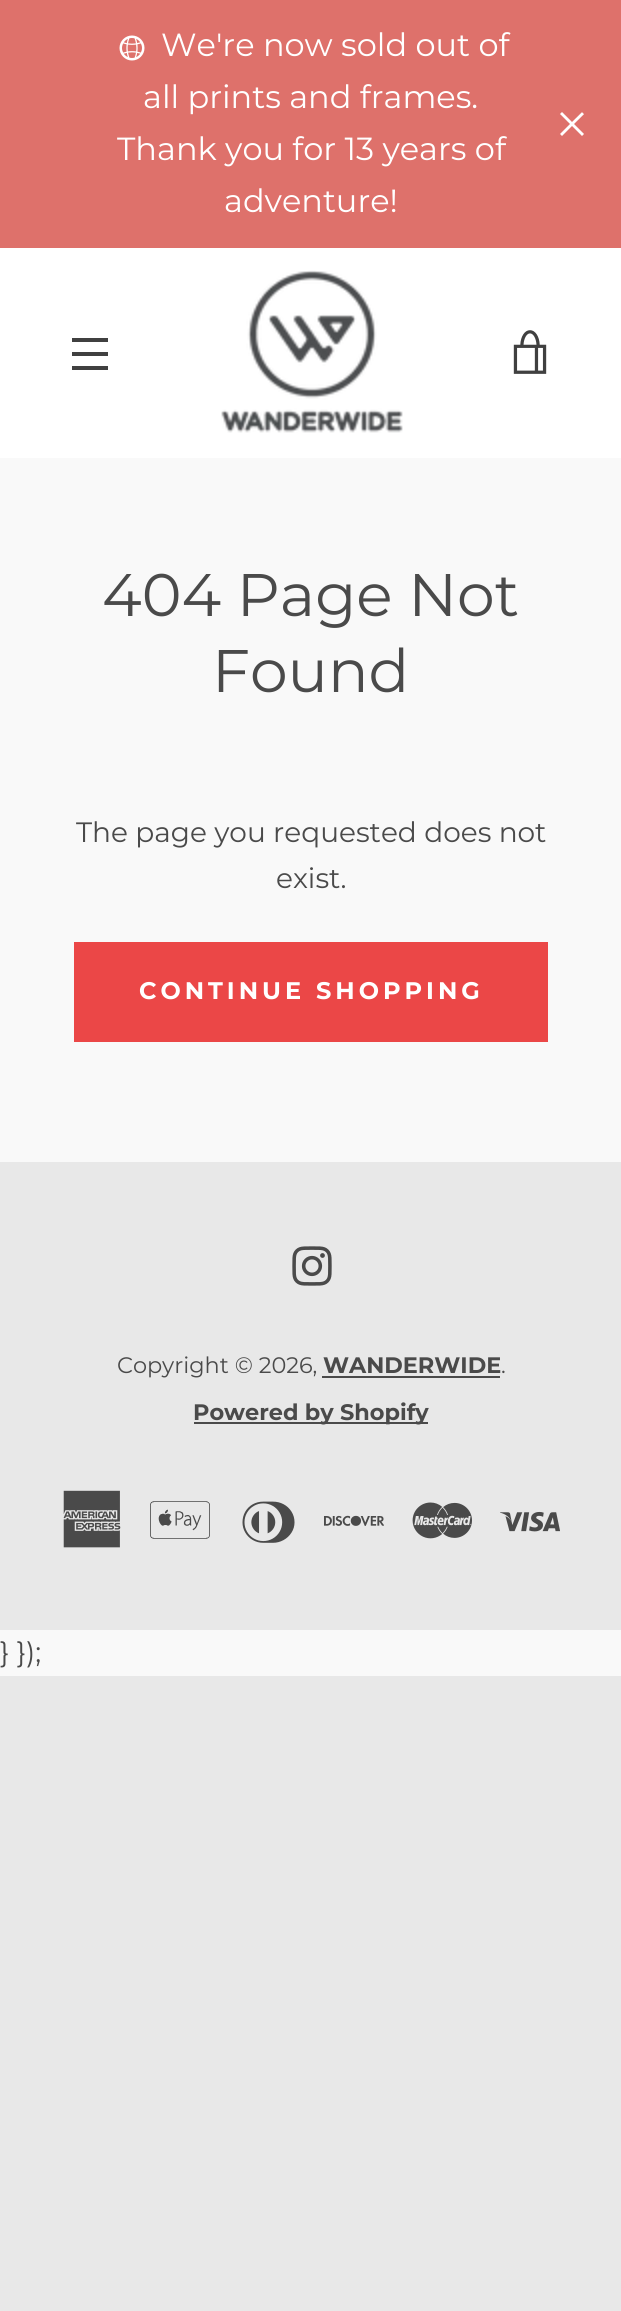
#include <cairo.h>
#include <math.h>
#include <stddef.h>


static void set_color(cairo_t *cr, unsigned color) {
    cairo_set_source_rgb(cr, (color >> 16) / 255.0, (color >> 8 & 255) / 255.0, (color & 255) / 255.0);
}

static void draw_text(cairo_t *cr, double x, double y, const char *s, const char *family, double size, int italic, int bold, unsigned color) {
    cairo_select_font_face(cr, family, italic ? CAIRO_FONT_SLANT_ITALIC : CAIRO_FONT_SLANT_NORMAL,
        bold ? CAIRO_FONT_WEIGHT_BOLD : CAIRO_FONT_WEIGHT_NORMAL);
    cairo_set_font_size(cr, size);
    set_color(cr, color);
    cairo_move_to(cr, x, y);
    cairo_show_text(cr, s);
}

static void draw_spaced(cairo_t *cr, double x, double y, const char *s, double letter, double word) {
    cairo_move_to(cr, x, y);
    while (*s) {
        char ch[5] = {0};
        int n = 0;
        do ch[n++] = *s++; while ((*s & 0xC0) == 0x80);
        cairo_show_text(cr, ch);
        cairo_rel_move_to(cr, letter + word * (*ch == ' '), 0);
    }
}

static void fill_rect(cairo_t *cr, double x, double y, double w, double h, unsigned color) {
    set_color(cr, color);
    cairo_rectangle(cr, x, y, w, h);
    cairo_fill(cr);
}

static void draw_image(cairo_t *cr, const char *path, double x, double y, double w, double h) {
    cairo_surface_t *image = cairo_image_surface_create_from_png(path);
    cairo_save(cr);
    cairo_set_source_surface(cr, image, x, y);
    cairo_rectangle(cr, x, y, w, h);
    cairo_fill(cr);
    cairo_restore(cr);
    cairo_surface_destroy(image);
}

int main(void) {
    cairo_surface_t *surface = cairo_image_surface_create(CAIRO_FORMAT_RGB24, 621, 2311);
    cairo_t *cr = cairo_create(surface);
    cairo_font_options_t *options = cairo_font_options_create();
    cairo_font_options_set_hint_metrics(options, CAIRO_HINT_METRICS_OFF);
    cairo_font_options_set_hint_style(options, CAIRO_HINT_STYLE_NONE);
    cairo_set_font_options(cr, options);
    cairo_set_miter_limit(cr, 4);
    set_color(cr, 0xE8E8E8);
    cairo_paint(cr);
    fill_rect(cr, 0, 458, 621, 1218, 0xF9F9F9);
    fill_rect(cr, 0, 248, 621, 210, 0xFFFFFF);
    fill_rect(cr, 0, 0, 621, 248, 0xDE716B);
    draw_image(cr, "assets/img1.png", 119, 35, 26, 26);
    draw_text(cr, 161, 56, "We're now sold out of", "Montserrat Thin", 32, 0, 0, 0xFFFFFF);
    draw_text(cr, 143, 108, "all prints and frames.", "Montserrat Thin", 32, 0, 0, 0xFFFFFF);
    draw_text(cr, 117, 160, "Thank you for 13 years of", "Montserrat Thin", 32, 0, 0, 0xFFFFFF);
    draw_text(cr, 224, 212, "adventure!", "Montserrat Thin", 32, 0, 0, 0xFFFFFF);
    draw_image(cr, "assets/img2.png", 560, 112, 24, 24);
    fill_rect(cr, 72, 338, 36, 4, 0x404040);
    fill_rect(cr, 72, 352, 36, 4, 0x404040);
    fill_rect(cr, 72, 366, 36, 4, 0x404040);
    draw_image(cr, "assets/img3.png", 221, 270, 182, 163);
    draw_image(cr, "assets/img4.png", 513, 330, 34, 44);
    draw_text(cr, 102, 616, "404 Page Not", "Montserrat Thin", 60, 0, 0, 0x4A4A4A);
    draw_text(cr, 212, 692, "Found", "Montserrat Thin", 60, 0, 0, 0x4A4A4A);
    draw_text(cr, 76, 842, "The page you requested does not", "Montserrat Thin", 28, 0, 0, 0x4A4A4A);
    draw_text(cr, 276, 888, "exist.", "Montserrat Thin", 28, 0, 0, 0x4A4A4A);
    fill_rect(cr, 74, 942, 474, 100, 0xEB4747);
    cairo_select_font_face(cr, "Montserrat", CAIRO_FONT_SLANT_NORMAL, CAIRO_FONT_WEIGHT_BOLD);
    cairo_set_font_size(cr, 24);
    set_color(cr, 0xFFFFFF);
    draw_spaced(cr, 139, 999, "CONTINUE SHOPPING", 4, 0);
    fill_rect(cr, 0, 1162, 621, 468, 0xE8E8E8);
    draw_image(cr, "assets/img5.png", 292, 1246, 40, 40);
    draw_text(cr, 117, 1373, "Copyright © 2026,", "Montserrat Thin", 22.4, 0, 0, 0x4A4A4A);
    draw_text(cr, 323, 1373, "WANDERWIDE", "Montserrat", 22.4, 0, 1, 0x4A4A4A);
    fill_rect(cr, 322, 1376, 178, 2, 0x4A4A4A);
    draw_text(cr, 501, 1373, ".", "Montserrat Thin", 22.4, 0, 0, 0x4A4A4A);
    fill_rect(cr, 194, 1422, 234, 2, 0x4A4A4A);
    draw_text(cr, 193, 1420, "Powered by Shopify", "Montserrat", 22.4, 0, 1, 0x4A4A4A);
    draw_image(cr, "assets/img6.png", 63, 1490, 58, 58);
    draw_image(cr, "assets/img7.png", 150, 1501, 60, 38);
    draw_image(cr, "assets/img8.png", 242, 1501, 53, 42);
    draw_image(cr, "assets/img9.png", 324, 1515, 60, 11);
    draw_image(cr, "assets/img10.png", 412, 1502, 60, 37);
    draw_image(cr, "assets/img11.png", 500, 1511, 60, 21);
    draw_text(cr, 0, 1662, "} });", "Montserrat Thin", 28, 0, 0, 0x4A4A4A);
    cairo_surface_write_to_png(surface, "output.png");
    cairo_font_options_destroy(options);
    cairo_destroy(cr);
    cairo_surface_destroy(surface);
    return 0;
}
